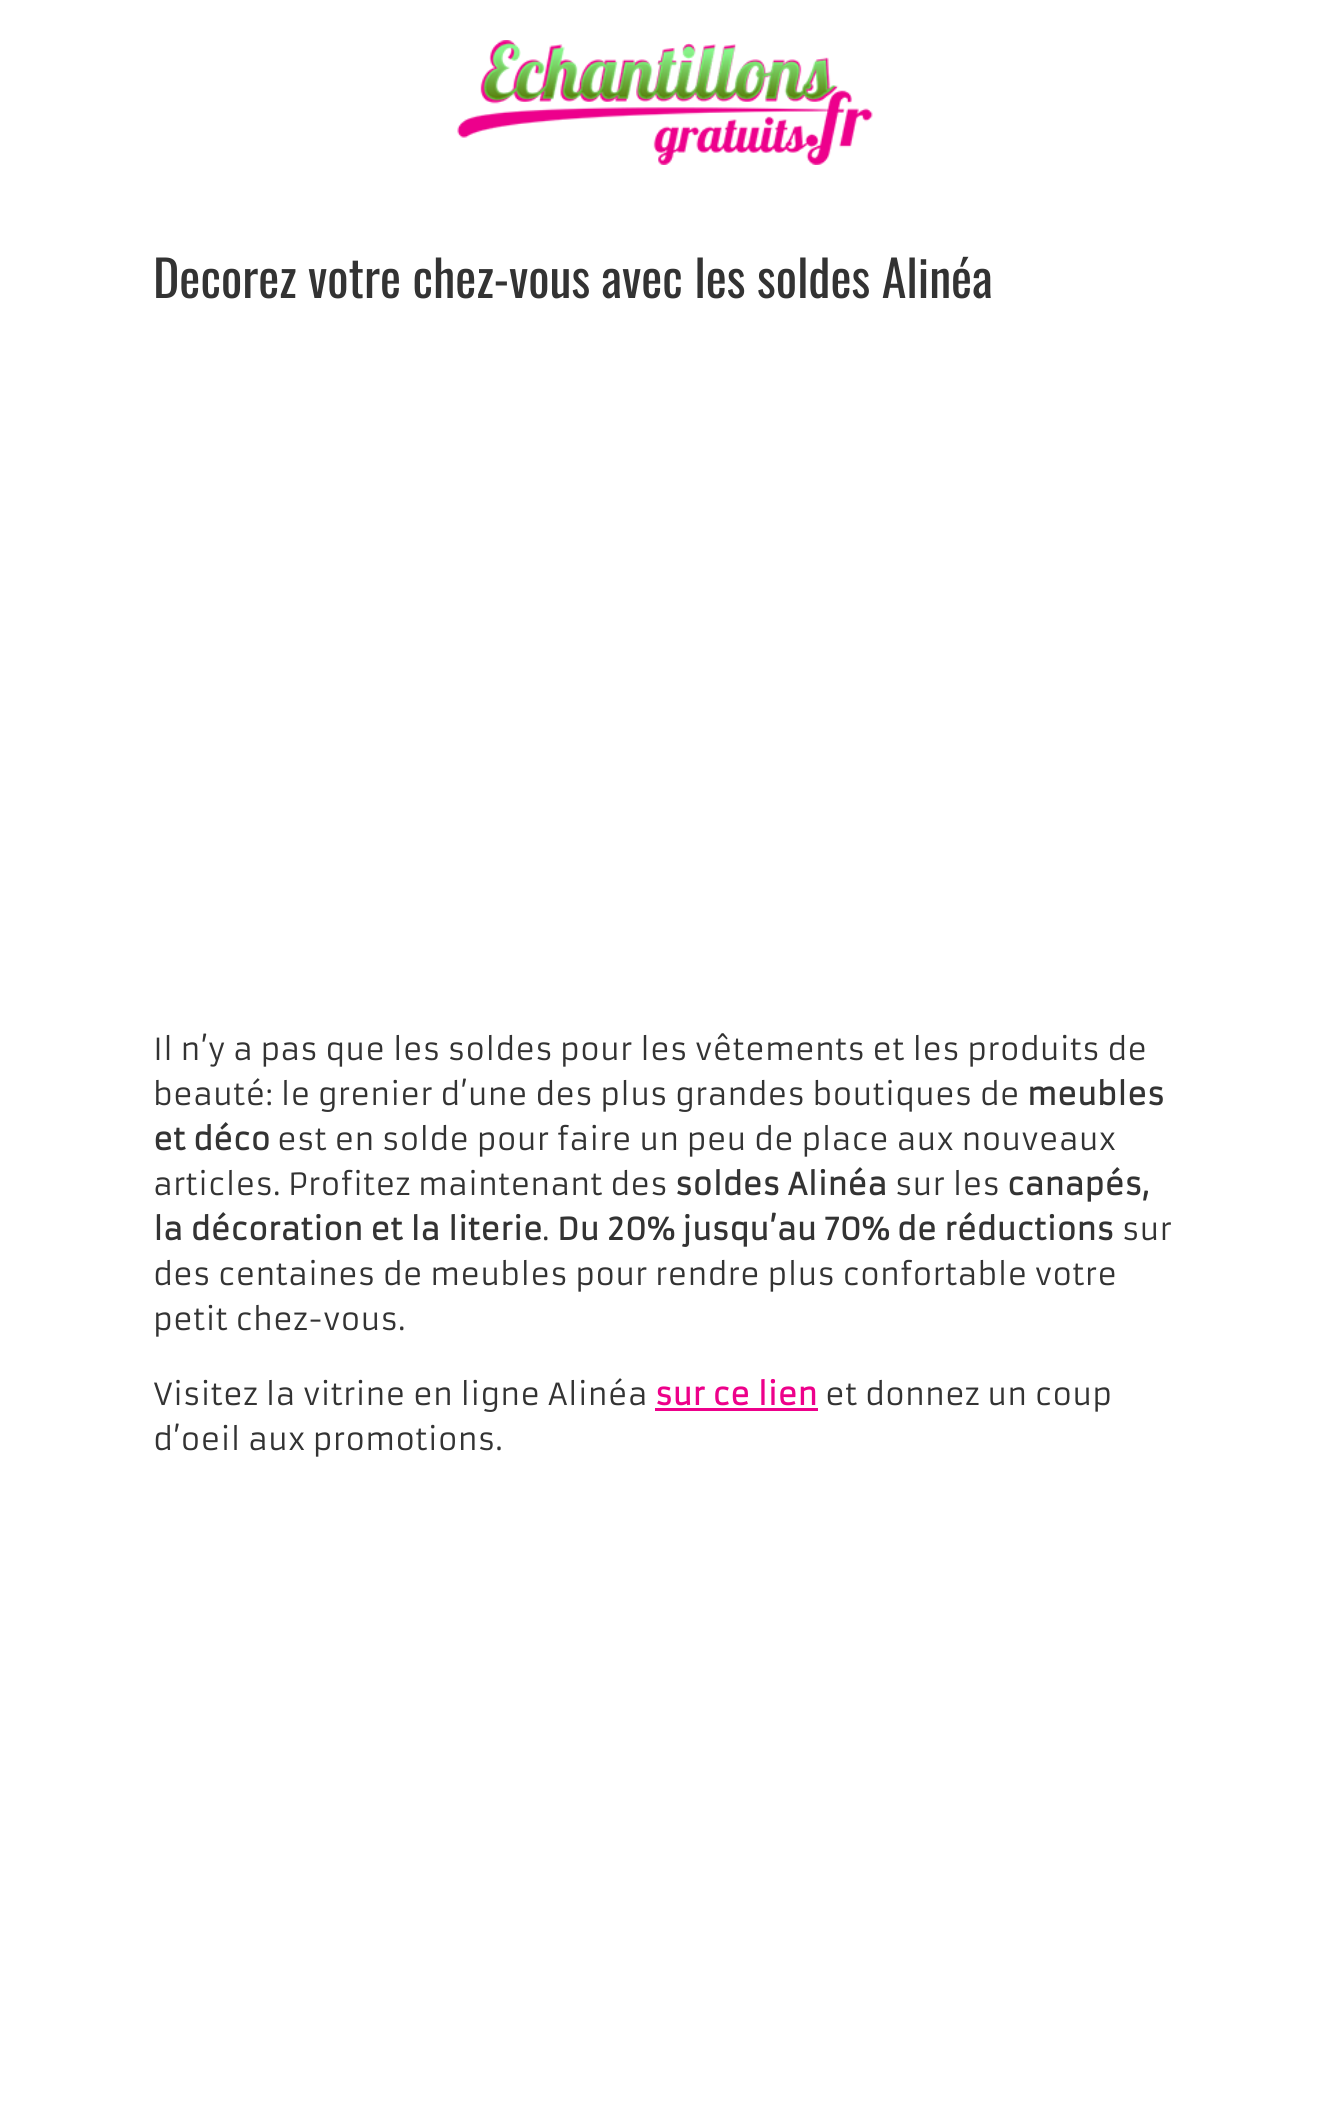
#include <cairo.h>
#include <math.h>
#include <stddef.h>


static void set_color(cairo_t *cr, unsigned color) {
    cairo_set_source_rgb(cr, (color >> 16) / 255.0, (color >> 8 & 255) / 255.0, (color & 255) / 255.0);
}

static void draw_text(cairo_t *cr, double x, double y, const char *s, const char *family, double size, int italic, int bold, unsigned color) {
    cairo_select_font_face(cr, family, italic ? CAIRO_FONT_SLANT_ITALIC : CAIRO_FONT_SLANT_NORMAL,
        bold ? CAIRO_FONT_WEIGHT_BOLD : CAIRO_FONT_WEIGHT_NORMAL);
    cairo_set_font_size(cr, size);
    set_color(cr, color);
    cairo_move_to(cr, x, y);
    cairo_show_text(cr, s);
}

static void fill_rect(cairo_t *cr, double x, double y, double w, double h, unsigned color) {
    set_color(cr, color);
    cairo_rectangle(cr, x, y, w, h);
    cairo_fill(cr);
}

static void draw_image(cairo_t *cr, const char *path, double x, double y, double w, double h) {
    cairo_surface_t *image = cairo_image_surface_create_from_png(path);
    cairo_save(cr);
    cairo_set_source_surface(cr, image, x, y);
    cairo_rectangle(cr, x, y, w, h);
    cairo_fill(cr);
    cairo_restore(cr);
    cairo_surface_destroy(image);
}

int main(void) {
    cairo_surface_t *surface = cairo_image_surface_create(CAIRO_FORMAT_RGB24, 1329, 2111);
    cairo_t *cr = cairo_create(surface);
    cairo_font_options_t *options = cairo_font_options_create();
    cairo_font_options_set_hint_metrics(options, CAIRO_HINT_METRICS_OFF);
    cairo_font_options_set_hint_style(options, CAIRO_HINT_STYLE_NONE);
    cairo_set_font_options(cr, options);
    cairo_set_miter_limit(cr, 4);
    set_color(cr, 0xFFFFFF);
    cairo_paint(cr);
    draw_image(cr, "assets/img1.png", 457, 40, 416, 125);
    draw_text(cr, 153, 298, "Decorez votre chez-vous avec les soldes Alinéa", "Oswald", 50, 0, 0, 0x333333);
    draw_text(cr, 153, 1060, "Il n’y a pas que les soldes pour les vêtements et les produits de", "Armata", 30, 0, 0, 0x333333);
    draw_text(cr, 153, 1105, "beauté: le grenier d’une des plus grandes boutiques de", "Armata", 30, 0, 0, 0x333333);
    draw_text(cr, 1027, 1105, "meubles", "Armata", 30, 0, 1, 0x333333);
    draw_text(cr, 153, 1150, "et déco", "Armata", 30, 0, 1, 0x333333);
    draw_text(cr, 277, 1150, "est en solde pour faire un peu de place aux nouveaux", "Armata", 30, 0, 0, 0x333333);
    draw_text(cr, 153, 1195, "articles. Profitez maintenant des", "Armata", 30, 0, 0, 0x333333);
    draw_text(cr, 675, 1195, "soldes Alinéa", "Armata", 30, 0, 1, 0x333333);
    draw_text(cr, 895, 1195, "sur les", "Armata", 30, 0, 0, 0x333333);
    draw_text(cr, 1007, 1195, "canapés,", "Armata", 30, 0, 1, 0x333333);
    draw_text(cr, 153, 1240, "la décoration et la literie", "Armata", 30, 0, 1, 0x333333);
    draw_text(cr, 542, 1240, ".", "Armata", 30, 0, 0, 0x333333);
    draw_text(cr, 557, 1240, "Du 20% jusqu’au 70% de réductions", "Armata", 30, 0, 1, 0x333333);
    draw_text(cr, 1122, 1240, "sur", "Armata", 30, 0, 0, 0x333333);
    draw_text(cr, 153, 1285, "des centaines de meubles pour rendre plus confortable votre", "Armata", 30, 0, 0, 0x333333);
    draw_text(cr, 153, 1330, "petit chez-vous.", "Armata", 30, 0, 0, 0x333333);
    draw_text(cr, 153, 1405, "Visitez la vitrine en ligne Alinéa", "Armata", 30, 0, 0, 0x333333);
    draw_text(cr, 655, 1405, "sur ce lien", "Armata", 30, 0, 1, 0xED008A);
    fill_rect(cr, 655, 1408, 163, 3, 0xED008A);
    draw_text(cr, 825, 1405, "et donnez un coup", "Armata", 30, 0, 0, 0x333333);
    draw_text(cr, 153, 1450, "d’oeil aux promotions.", "Armata", 30, 0, 0, 0x333333);
    cairo_surface_write_to_png(surface, "output.png");
    cairo_font_options_destroy(options);
    cairo_destroy(cr);
    cairo_surface_destroy(surface);
    return 0;
}
